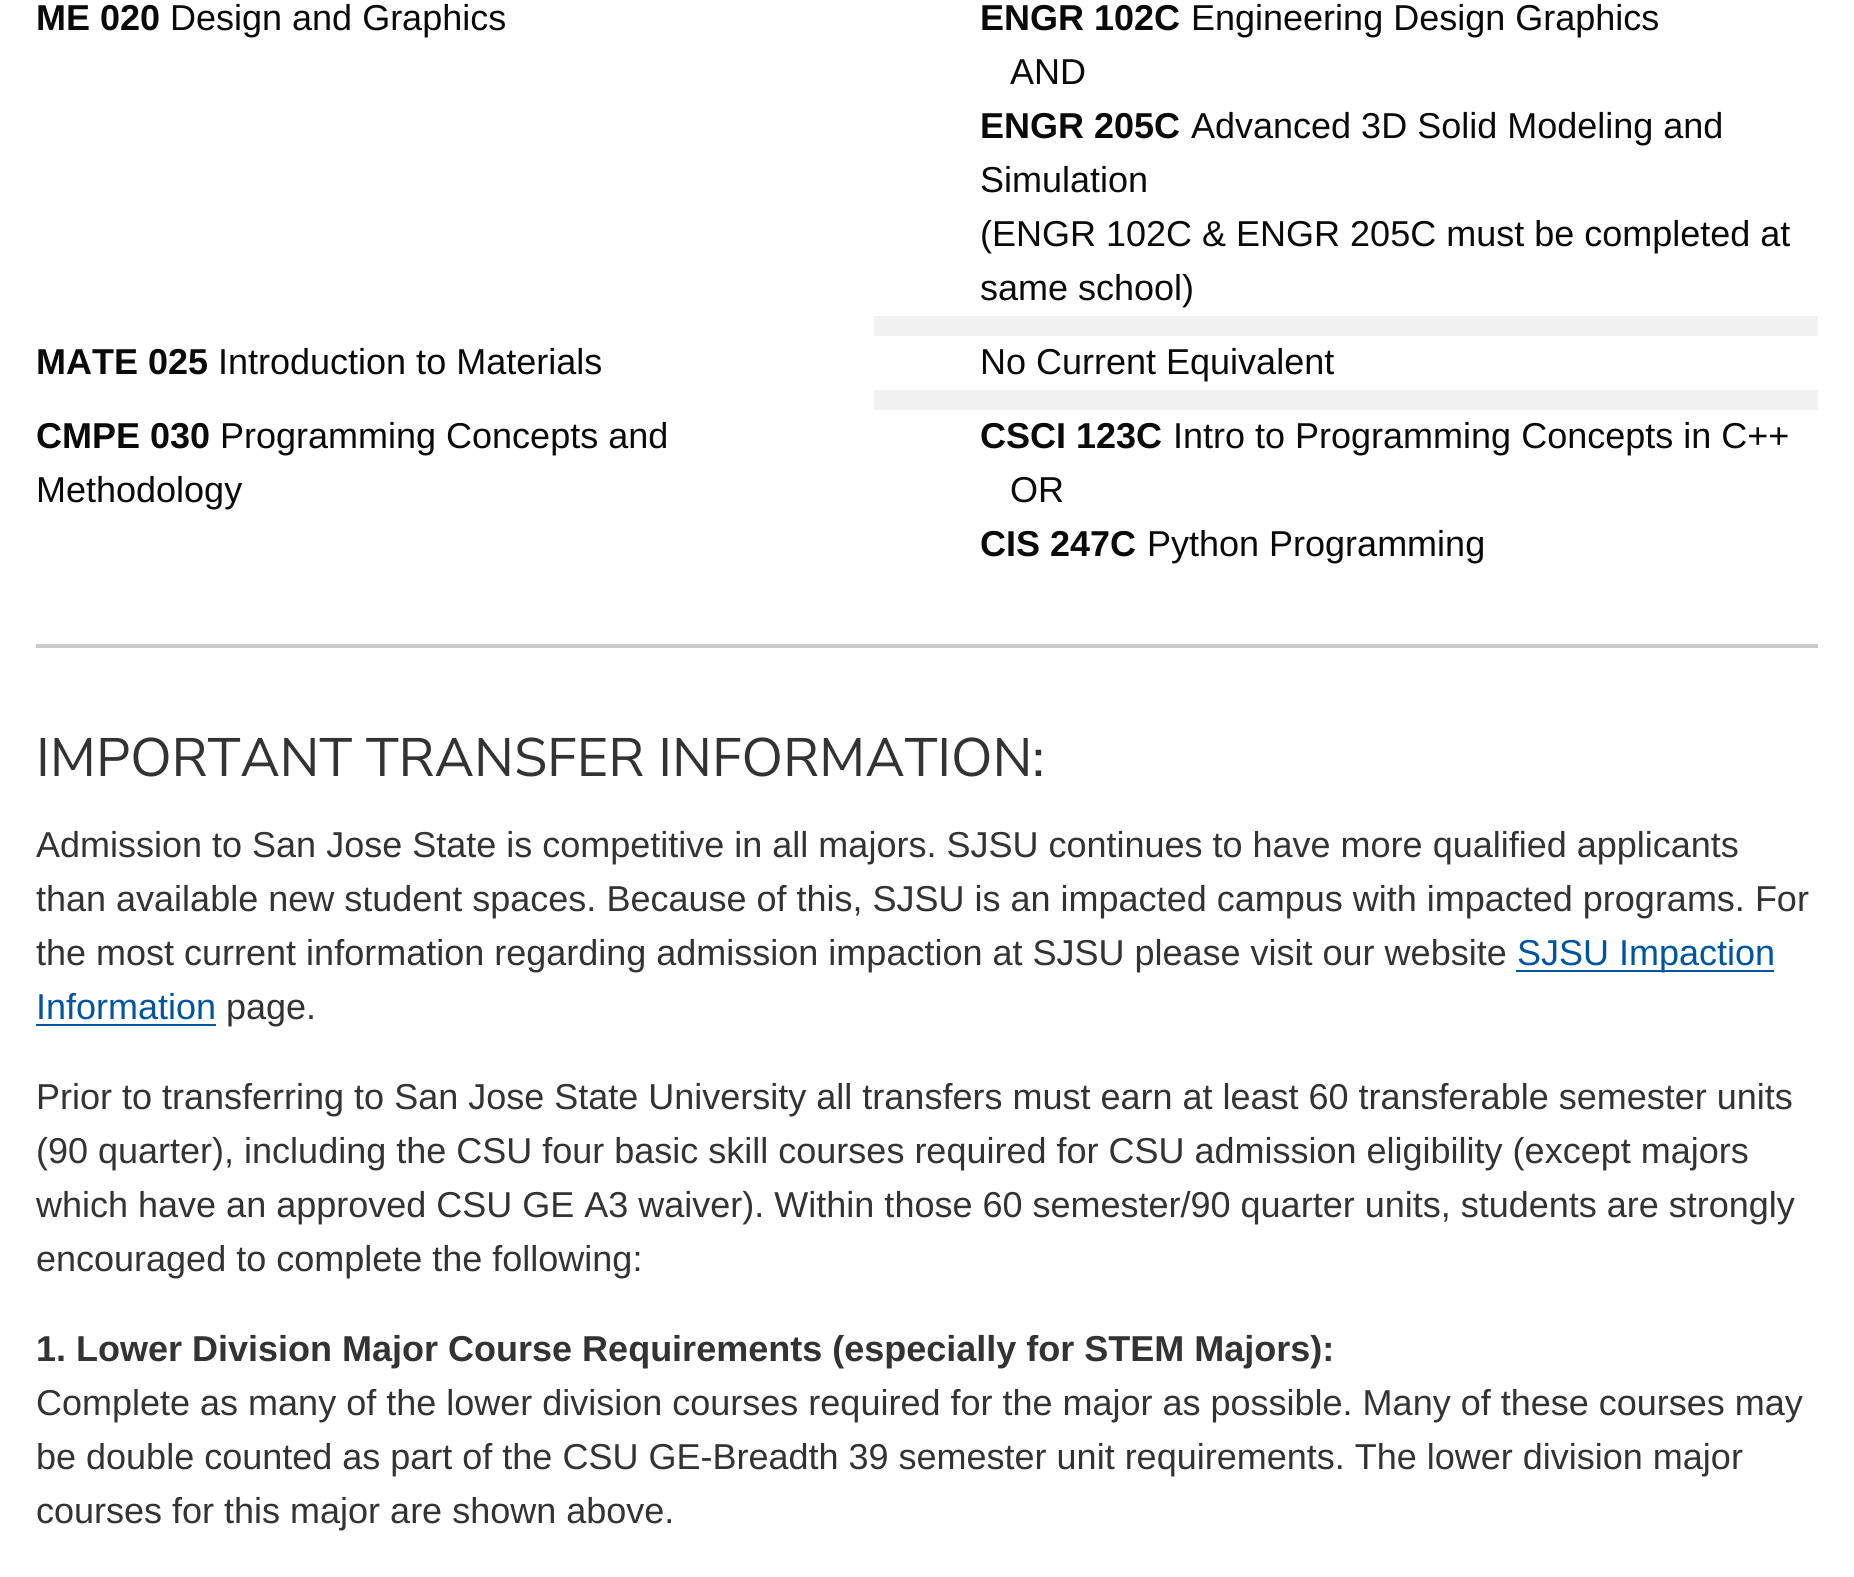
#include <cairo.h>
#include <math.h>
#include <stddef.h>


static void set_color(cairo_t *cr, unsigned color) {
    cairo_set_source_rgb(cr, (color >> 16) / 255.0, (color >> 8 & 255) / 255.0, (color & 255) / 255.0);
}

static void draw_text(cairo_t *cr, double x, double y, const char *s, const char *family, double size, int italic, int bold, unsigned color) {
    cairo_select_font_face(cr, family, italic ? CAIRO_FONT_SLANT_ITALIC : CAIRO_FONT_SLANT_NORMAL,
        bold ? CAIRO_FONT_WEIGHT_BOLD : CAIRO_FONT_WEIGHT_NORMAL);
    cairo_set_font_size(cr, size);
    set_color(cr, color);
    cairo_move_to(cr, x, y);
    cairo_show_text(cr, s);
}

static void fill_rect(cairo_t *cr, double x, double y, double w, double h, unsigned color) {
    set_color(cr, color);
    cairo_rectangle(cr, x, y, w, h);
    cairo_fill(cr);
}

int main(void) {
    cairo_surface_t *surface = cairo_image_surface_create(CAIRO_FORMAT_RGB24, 1854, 1577);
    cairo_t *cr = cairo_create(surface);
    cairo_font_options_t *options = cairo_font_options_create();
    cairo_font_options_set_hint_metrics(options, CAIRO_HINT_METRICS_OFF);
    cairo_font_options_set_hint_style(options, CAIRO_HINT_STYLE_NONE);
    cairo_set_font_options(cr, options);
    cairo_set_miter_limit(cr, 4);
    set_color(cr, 0xFFFFFF);
    cairo_paint(cr);
    draw_text(cr, 36, 30, "ME 020", "Liberation Sans", 36, 0, 1, 0x0A0A0A);
    draw_text(cr, 170, 30, "Design and Graphics", "Liberation Sans", 36, 0, 0, 0x0A0A0A);
    draw_text(cr, 980, 30, "ENGR 102C", "Liberation Sans", 36, 0, 1, 0x0A0A0A);
    draw_text(cr, 1191, 30, "Engineering Design Graphics", "Liberation Sans", 36, 0, 0, 0x0A0A0A);
    draw_text(cr, 1010, 84, "AND", "Liberation Sans", 36, 0, 0, 0x0A0A0A);
    draw_text(cr, 980, 138, "ENGR 205C", "Liberation Sans", 36, 0, 1, 0x0A0A0A);
    draw_text(cr, 1191, 138, "Advanced 3D Solid Modeling and", "Liberation Sans", 36, 0, 0, 0x0A0A0A);
    draw_text(cr, 980, 192, "Simulation", "Liberation Sans", 36, 0, 0, 0x0A0A0A);
    draw_text(cr, 980, 246, "(ENGR 102C & ENGR 205C must be completed at", "Liberation Sans", 36, 0, 0, 0x0A0A0A);
    draw_text(cr, 980, 300, "same school)", "Liberation Sans", 36, 0, 0, 0x0A0A0A);
    fill_rect(cr, 874, 316, 944, 20, 0xF1F1F1);
    draw_text(cr, 36, 374, "MATE 025", "Liberation Sans", 36, 0, 1, 0x0A0A0A);
    draw_text(cr, 218, 374, "Introduction to Materials", "Liberation Sans", 36, 0, 0, 0x0A0A0A);
    draw_text(cr, 980, 374, "No Current Equivalent", "Liberation Sans", 36, 0, 0, 0x0A0A0A);
    fill_rect(cr, 874, 390, 944, 20, 0xF1F1F1);
    draw_text(cr, 36, 448, "CMPE 030", "Liberation Sans", 36, 0, 1, 0x0A0A0A);
    draw_text(cr, 220, 448, "Programming Concepts and", "Liberation Sans", 36, 0, 0, 0x0A0A0A);
    draw_text(cr, 36, 502, "Methodology", "Liberation Sans", 36, 0, 0, 0x0A0A0A);
    draw_text(cr, 980, 448, "CSCI 123C", "Liberation Sans", 36, 0, 1, 0x0A0A0A);
    draw_text(cr, 1173, 448, "Intro to Programming Concepts in C++", "Liberation Sans", 36, 0, 0, 0x0A0A0A);
    draw_text(cr, 1010, 502, "OR", "Liberation Sans", 36, 0, 0, 0x0A0A0A);
    draw_text(cr, 980, 556, "CIS 247C", "Liberation Sans", 36, 0, 1, 0x0A0A0A);
    draw_text(cr, 1147, 556, "Python Programming", "Liberation Sans", 36, 0, 0, 0x0A0A0A);
    fill_rect(cr, 36, 644, 1782, 4, 0xCACACA);
    draw_text(cr, 36, 776, "IMPORTANT TRANSFER INFORMATION:", "Nunito Sans", 54, 0, 0, 0x333333);
    draw_text(cr, 36, 857, "Admission to San Jose State is competitive in all majors. SJSU continues to have more qualified applicants", "Liberation Sans", 36, 0, 0, 0x333333);
    draw_text(cr, 36, 911, "than available new student spaces. Because of this, SJSU is an impacted campus with impacted programs. For", "Liberation Sans", 36, 0, 0, 0x333333);
    draw_text(cr, 36, 965, "the most current information regarding admission impaction at SJSU please visit our website", "Liberation Sans", 36, 0, 0, 0x333333);
    fill_rect(cr, 1516, 970, 258, 2, 0x0055A2);
    draw_text(cr, 1517, 965, "SJSU Impaction", "Liberation Sans", 36, 0, 0, 0x0055A2);
    draw_text(cr, 36, 1019, "Information", "Liberation Sans", 36, 0, 0, 0x0055A2);
    fill_rect(cr, 36, 1024, 180, 2, 0x0055A2);
    draw_text(cr, 226, 1019, "page.", "Liberation Sans", 36, 0, 0, 0x333333);
    draw_text(cr, 36, 1109, "Prior to transferring to San Jose State University all transfers must earn at least 60 transferable semester units", "Liberation Sans", 36, 0, 0, 0x333333);
    draw_text(cr, 36, 1163, "(90 quarter), including the CSU four basic skill courses required for CSU admission eligibility (except majors", "Liberation Sans", 36, 0, 0, 0x333333);
    draw_text(cr, 36, 1217, "which have an approved CSU GE A3 waiver). Within those 60 semester/90 quarter units, students are strongly", "Liberation Sans", 36, 0, 0, 0x333333);
    draw_text(cr, 36, 1271, "encouraged to complete the following:", "Liberation Sans", 36, 0, 0, 0x333333);
    draw_text(cr, 36, 1361, "1. Lower Division Major Course Requirements (especially for STEM Majors):", "Liberation Sans", 36, 0, 1, 0x333333);
    draw_text(cr, 36, 1415, "Complete as many of the lower division courses required for the major as possible. Many of these courses may", "Liberation Sans", 36, 0, 0, 0x333333);
    draw_text(cr, 36, 1469, "be double counted as part of the CSU GE-Breadth 39 semester unit requirements. The lower division major", "Liberation Sans", 36, 0, 0, 0x333333);
    draw_text(cr, 36, 1523, "courses for this major are shown above.", "Liberation Sans", 36, 0, 0, 0x333333);
    cairo_surface_write_to_png(surface, "output.png");
    cairo_font_options_destroy(options);
    cairo_destroy(cr);
    cairo_surface_destroy(surface);
    return 0;
}
